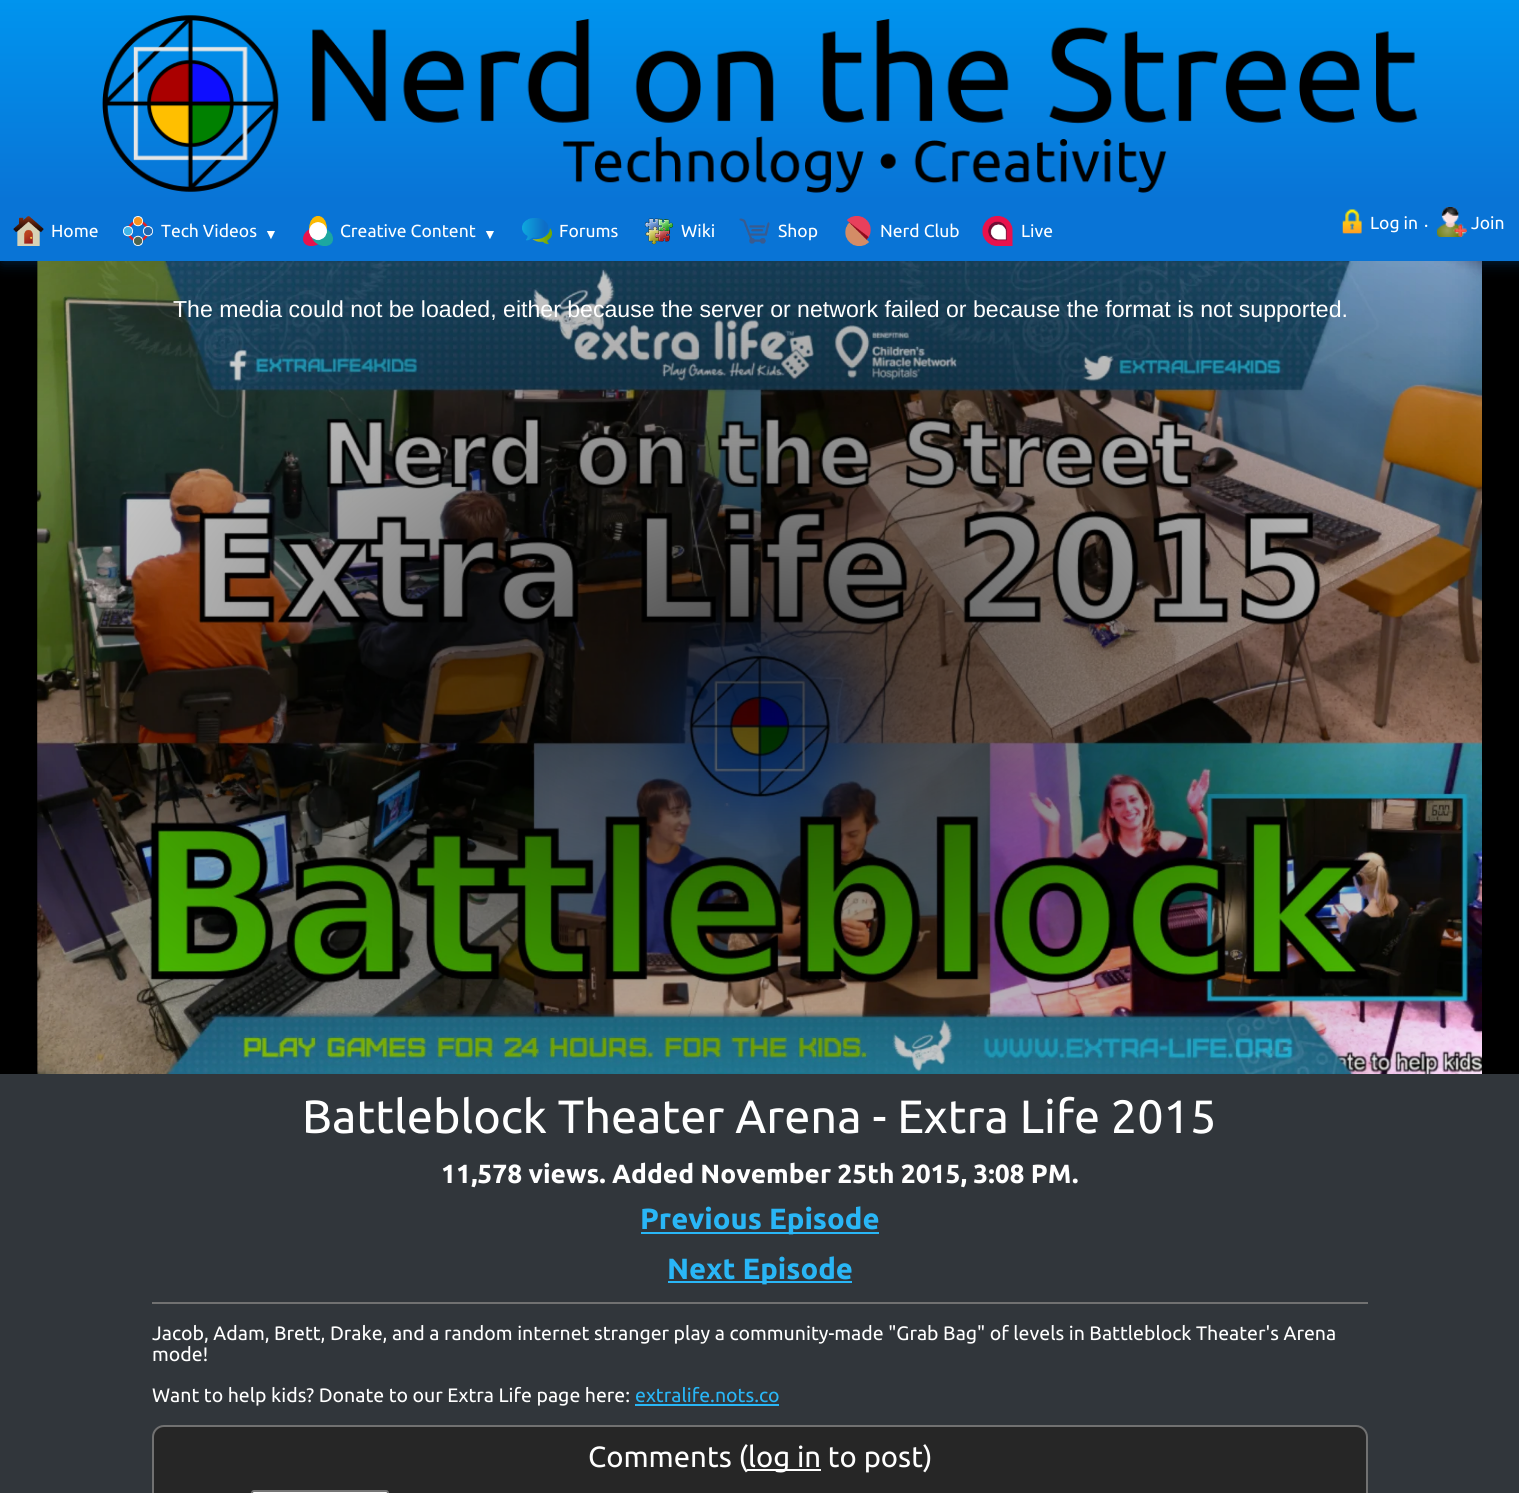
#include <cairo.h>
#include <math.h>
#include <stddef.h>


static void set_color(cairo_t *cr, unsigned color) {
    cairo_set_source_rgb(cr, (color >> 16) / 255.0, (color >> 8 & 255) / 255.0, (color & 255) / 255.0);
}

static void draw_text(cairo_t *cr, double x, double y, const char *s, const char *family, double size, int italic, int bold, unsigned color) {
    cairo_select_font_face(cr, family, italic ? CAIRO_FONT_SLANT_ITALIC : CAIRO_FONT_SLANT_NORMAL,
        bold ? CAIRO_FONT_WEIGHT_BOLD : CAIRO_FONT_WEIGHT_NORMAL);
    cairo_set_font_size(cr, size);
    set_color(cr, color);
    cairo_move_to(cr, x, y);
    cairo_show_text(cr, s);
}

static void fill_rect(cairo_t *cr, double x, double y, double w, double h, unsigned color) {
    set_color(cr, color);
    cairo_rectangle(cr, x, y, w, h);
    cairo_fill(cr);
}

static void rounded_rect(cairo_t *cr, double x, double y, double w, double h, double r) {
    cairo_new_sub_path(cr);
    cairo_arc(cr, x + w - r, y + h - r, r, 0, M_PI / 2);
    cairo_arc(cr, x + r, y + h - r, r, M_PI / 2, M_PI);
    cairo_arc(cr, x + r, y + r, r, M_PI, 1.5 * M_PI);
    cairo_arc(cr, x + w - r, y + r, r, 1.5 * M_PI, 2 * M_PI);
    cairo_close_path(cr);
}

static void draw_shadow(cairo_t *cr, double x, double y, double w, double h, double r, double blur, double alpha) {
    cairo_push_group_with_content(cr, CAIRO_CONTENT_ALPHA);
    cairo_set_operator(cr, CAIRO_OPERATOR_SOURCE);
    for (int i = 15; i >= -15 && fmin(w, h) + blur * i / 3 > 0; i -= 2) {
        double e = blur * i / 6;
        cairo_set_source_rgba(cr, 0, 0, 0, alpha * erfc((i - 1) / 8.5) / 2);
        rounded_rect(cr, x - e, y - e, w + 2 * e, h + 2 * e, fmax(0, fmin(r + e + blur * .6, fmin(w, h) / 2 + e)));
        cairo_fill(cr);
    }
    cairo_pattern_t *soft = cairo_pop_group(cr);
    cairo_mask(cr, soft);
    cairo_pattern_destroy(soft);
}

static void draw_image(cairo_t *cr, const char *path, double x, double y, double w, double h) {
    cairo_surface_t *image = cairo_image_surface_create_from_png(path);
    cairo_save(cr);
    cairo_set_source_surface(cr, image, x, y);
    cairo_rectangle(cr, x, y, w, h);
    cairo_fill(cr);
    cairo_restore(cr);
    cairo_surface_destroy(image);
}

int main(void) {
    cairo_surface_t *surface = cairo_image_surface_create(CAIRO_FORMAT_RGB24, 1519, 1493);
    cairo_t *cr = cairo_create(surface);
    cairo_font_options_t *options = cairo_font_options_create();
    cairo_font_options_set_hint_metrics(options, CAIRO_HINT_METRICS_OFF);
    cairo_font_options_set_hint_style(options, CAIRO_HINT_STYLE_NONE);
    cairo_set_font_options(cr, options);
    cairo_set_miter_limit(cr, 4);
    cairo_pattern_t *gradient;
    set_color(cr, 0x31363B);
    cairo_paint(cr);
    fill_rect(cr, 0, 261, 1519, 813, 0x000000);
    set_color(cr, 0x00294E);
    draw_shadow(cr, 2, 0, 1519, 261, 0, 7.5, 1);
    gradient = cairo_pattern_create_linear(760, 0, 760, 200);
    cairo_pattern_add_color_stop_rgba(gradient, 0, 0, 0.58, 0.933, 1);
    cairo_pattern_add_color_stop_rgba(gradient, 1, 0.035, 0.455, 0.839, 1);
    cairo_set_source(cr, gradient);
    cairo_pattern_destroy(gradient);
    cairo_rectangle(cr, 0, 0, 1519, 200);
    cairo_fill(cr);
    draw_image(cr, "assets/img1.png", 102, 15, 1316, 178);
    fill_rect(cr, 0, 200, 1519, 61, 0x0974D6);
    draw_image(cr, "assets/img2.png", 13, 216, 31, 30);
    draw_text(cr, 51, 237, "Home", "Ubuntu", 17.5, 0, 0, 0xFFFFFF);
    draw_image(cr, "assets/img3.png", 123, 216, 30, 30);
    draw_text(cr, 161, 237, "Tech Videos", "Ubuntu", 17.5, 0, 0, 0xFFFFFF);
    draw_text(cr, 264, 239, "▼", "Liberation Sans", 14, 0, 0, 0xFFFFFF);
    draw_image(cr, "assets/img4.png", 303, 216, 30, 30);
    draw_text(cr, 340, 237, "Creative Content", "Ubuntu", 17.5, 0, 0, 0xFFFFFF);
    draw_text(cr, 483, 239, "▼", "Liberation Sans", 14, 0, 0, 0xFFFFFF);
    draw_image(cr, "assets/img5.png", 522, 218, 30, 26);
    draw_text(cr, 559, 237, "Forums", "Ubuntu", 17.5, 0, 0, 0xFFFFFF);
    draw_image(cr, "assets/img6.png", 644, 218, 29, 27);
    draw_text(cr, 681, 237, "Wiki", "Ubuntu", 17.5, 0, 0, 0xFFFFFF);
    draw_image(cr, "assets/img7.png", 739, 218, 31, 26);
    draw_text(cr, 778, 237, "Shop", "Ubuntu", 17.5, 0, 0, 0xFFFFFF);
    draw_image(cr, "assets/img8.png", 845, 216, 26, 30);
    draw_text(cr, 880, 237, "Nerd Club", "Ubuntu", 17.5, 0, 0, 0xFFFFFF);
    draw_image(cr, "assets/img9.png", 982, 216, 31, 30);
    draw_text(cr, 1021, 237, "Live", "Ubuntu", 17.5, 0, 0, 0xFFFFFF);
    draw_image(cr, "assets/img10.png", 1342, 209, 20, 25);
    draw_text(cr, 1370, 229, "Log in", "Ubuntu", 17.5, 0, 0, 0xFFFFFF);
    draw_text(cr, 1424, 231, "·", "Ubuntu", 17.5, 0, 0, 0xFFFFFF);
    draw_image(cr, "assets/img11.png", 1437, 207, 30, 30);
    draw_text(cr, 1471, 229, "Join", "Ubuntu", 17.5, 0, 0, 0xFFFFFF);
    draw_image(cr, "assets/img12.png", 37, 261, 1, 812);
    draw_image(cr, "assets/img13.png", 37, 261, 1445, 813);
    draw_text(cr, 173, 317, "The media could not be loaded, either because the server or network failed or because the format is not supported.", "Liberation Sans", 23.1, 0, 0, 0xFFFFFF);
    fill_rect(cr, 152, 1302, 1216, 2, 0x717171);
    draw_text(cr, 302, 1133, "Battleblock Theater Arena - Extra Life 2015", "Ubuntu", 46.75, 0, 0, 0xFFFFFF);
    draw_text(cr, 441, 1183, "11,578 views. Added November 25th 2015, 3:08 PM", "Ubuntu", 26.3, 0, 1, 0xFFFFFF);
    draw_text(cr, 1072, 1183, ".", "Ubuntu", 26.3, 0, 1, 0xFFFFFF);
    fill_rect(cr, 641, 1232, 238, 2, 0x29B6F6);
    draw_text(cr, 640, 1229, "Previous Episode", "Ubuntu", 29.25, 0, 1, 0x29B6F6);
    fill_rect(cr, 668, 1281, 184, 2, 0x29B6F6);
    draw_text(cr, 667, 1279, "Next Episode", "Ubuntu", 29.25, 0, 1, 0x29B6F6);
    draw_text(cr, 152, 1340, "Jacob, Adam, Brett, Drake, and a random internet stranger play a community-made \"Grab Bag\" of levels in Battleblock Theater's Arena", "Ubuntu", 19.5, 0, 0, 0xFFFFFF);
    draw_text(cr, 152, 1361, "mode!", "Ubuntu", 19.5, 0, 0, 0xFFFFFF);
    draw_text(cr, 152, 1402, "Want to help kids? Donate to our Extra Life page here:", "Ubuntu", 19.5, 0, 0, 0xFFFFFF);
    draw_text(cr, 635, 1402, "extralife.nots.co", "Ubuntu", 19.5, 0, 0, 0x29B6F6);
    fill_rect(cr, 635, 1404, 144, 2, 0x29B6F6);
    set_color(cr, 0x262626);
    rounded_rect(cr, 153, 1426, 1214, 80, 11);
    cairo_fill_preserve(cr);
    set_color(cr, 0x717171);
    cairo_stroke(cr);
    draw_text(cr, 588, 1467, "Comments (", "Ubuntu", 29.25, 0, 0, 0xFFFFFF);
    fill_rect(cr, 747, 1469, 74, 2, 0xFFFFFF);
    draw_text(cr, 748, 1467, "log in to post)", "Ubuntu", 29.25, 0, 0, 0xFFFFFF);
    rounded_rect(cr, 252, 1491, 136, 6, 2);
    cairo_fill_preserve(cr);
    set_color(cr, 0x767676);
    cairo_stroke(cr);
    cairo_surface_write_to_png(surface, "output.png");
    cairo_font_options_destroy(options);
    cairo_destroy(cr);
    cairo_surface_destroy(surface);
    return 0;
}
